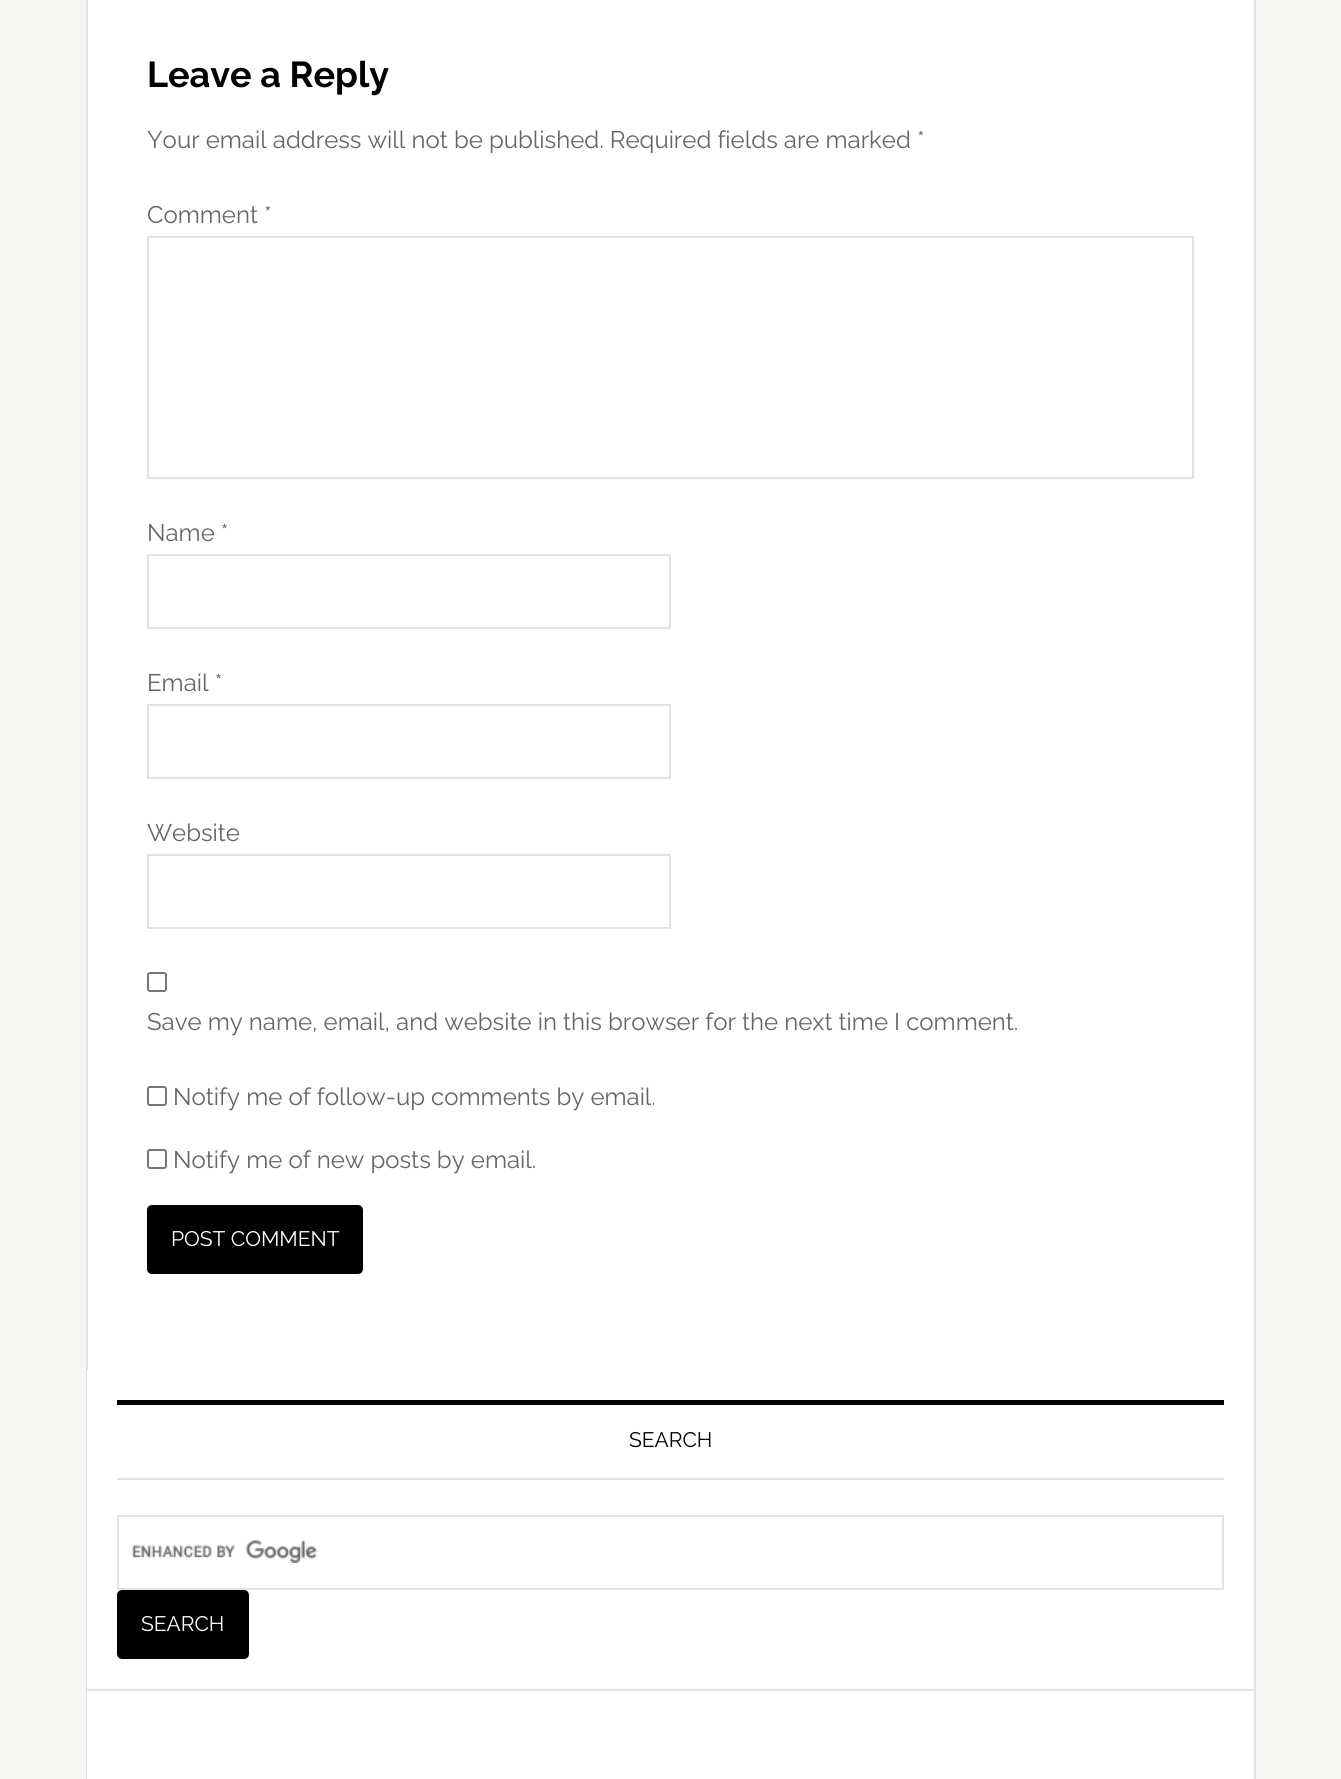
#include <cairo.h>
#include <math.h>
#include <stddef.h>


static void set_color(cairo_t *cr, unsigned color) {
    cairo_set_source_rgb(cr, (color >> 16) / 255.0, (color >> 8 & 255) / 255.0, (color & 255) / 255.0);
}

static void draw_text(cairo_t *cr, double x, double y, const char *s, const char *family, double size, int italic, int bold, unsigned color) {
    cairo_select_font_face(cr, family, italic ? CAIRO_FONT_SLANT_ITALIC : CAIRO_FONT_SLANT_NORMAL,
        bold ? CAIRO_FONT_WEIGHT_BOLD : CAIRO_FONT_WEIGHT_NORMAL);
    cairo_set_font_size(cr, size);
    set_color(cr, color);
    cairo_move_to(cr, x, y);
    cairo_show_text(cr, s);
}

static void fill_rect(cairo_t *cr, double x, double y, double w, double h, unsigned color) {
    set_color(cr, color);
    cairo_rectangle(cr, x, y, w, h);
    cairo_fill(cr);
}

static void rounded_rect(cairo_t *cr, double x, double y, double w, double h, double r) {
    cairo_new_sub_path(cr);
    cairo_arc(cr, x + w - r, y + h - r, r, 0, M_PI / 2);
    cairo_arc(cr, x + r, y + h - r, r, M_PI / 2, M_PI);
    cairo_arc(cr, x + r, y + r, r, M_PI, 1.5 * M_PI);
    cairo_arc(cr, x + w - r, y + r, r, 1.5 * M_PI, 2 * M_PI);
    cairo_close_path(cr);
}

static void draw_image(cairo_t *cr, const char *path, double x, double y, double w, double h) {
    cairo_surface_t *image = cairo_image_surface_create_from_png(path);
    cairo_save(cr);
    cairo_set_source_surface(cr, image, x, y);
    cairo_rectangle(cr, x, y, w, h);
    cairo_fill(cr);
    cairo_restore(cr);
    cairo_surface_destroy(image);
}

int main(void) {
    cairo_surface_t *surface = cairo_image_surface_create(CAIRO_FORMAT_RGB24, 1341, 1779);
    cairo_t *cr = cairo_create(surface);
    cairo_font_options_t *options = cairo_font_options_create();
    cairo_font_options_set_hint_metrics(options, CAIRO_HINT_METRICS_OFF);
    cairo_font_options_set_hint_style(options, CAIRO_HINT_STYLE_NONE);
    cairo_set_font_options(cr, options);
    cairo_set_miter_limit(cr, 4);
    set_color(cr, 0xF6F5F2);
    cairo_paint(cr);
    fill_rect(cr, 88, 0, 1166, 1370, 0xFFFFFF);
    cairo_rectangle(cr, 87, -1, 1168, 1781);
    set_color(cr, 0xE3E3E3);
    cairo_stroke(cr);
    draw_text(cr, 147, 87, "Leave a Reply", "Raleway", 36, 0, 1, 0x000000);
    draw_text(cr, 147, 148, "Your email address will not be published. Required fields are marked *", "Raleway", 24, 0, 0, 0x666666);
    draw_text(cr, 147, 223, "Comment *", "Raleway", 24, 0, 0, 0x666666);
    cairo_rectangle(cr, 148, 237, 1045, 241);
    set_color(cr, 0xE3E3E3);
    cairo_stroke(cr);
    draw_text(cr, 147, 541, "Name *", "Raleway", 24, 0, 0, 0x666666);
    cairo_rectangle(cr, 148, 555, 522, 73);
    set_color(cr, 0xE3E3E3);
    cairo_stroke(cr);
    draw_text(cr, 147, 691, "Email *", "Raleway", 24, 0, 0, 0x666666);
    cairo_rectangle(cr, 148, 705, 522, 73);
    set_color(cr, 0xE3E3E3);
    cairo_stroke(cr);
    draw_text(cr, 147, 841, "Website", "Raleway", 24, 0, 0, 0x666666);
    cairo_rectangle(cr, 148, 855, 522, 73);
    set_color(cr, 0xE3E3E3);
    cairo_stroke(cr);
    rounded_rect(cr, 148, 973, 18, 18, 2);
    set_color(cr, 0x767676);
    cairo_stroke(cr);
    draw_text(cr, 147, 1030, "Save my name, email, and website in this browser for the next time I comment.", "Raleway", 24, 0, 0, 0x666666);
    rounded_rect(cr, 148, 1087, 18, 18, 2);
    set_color(cr, 0x767676);
    cairo_stroke(cr);
    draw_text(cr, 173, 1105, "Notify me of follow-up comments by email.", "Raleway", 24, 0, 0, 0x666666);
    rounded_rect(cr, 148, 1150, 18, 18, 2);
    set_color(cr, 0x767676);
    cairo_stroke(cr);
    draw_text(cr, 173, 1168, "Notify me of new posts by email.", "Raleway", 24, 0, 0, 0x666666);
    set_color(cr, 0x000000);
    rounded_rect(cr, 147, 1205, 216, 69, 5);
    cairo_fill(cr);
    draw_text(cr, 171, 1246, "POST COMMENT", "Raleway", 21, 0, 0, 0xFFFFFF);
    fill_rect(cr, 87, 1370, 1167, 319, 0xFFFFFF);
    fill_rect(cr, 87, 1689, 1167, 2, 0xE3E3E3);
    fill_rect(cr, 117, 1400, 1107, 5, 0x000000);
    fill_rect(cr, 117, 1478, 1107, 2, 0xE3E3E3);
    draw_text(cr, 629, 1447, "SEARCH", "Raleway", 21, 0, 0, 0x000000);
    draw_image(cr, "assets/img1.png", 132, 1540, 185, 23);
    cairo_rectangle(cr, 118, 1516, 1105, 73);
    set_color(cr, 0xE3E3E3);
    cairo_stroke(cr);
    set_color(cr, 0x000000);
    rounded_rect(cr, 117, 1590, 132, 69, 5);
    cairo_fill(cr);
    draw_text(cr, 141, 1631, "SEARCH", "Raleway", 21, 0, 0, 0xFFFFFF);
    fill_rect(cr, 87, 1691, 1167, 88, 0xFFFFFF);
    cairo_surface_write_to_png(surface, "output.png");
    cairo_font_options_destroy(options);
    cairo_destroy(cr);
    cairo_surface_destroy(surface);
    return 0;
}
